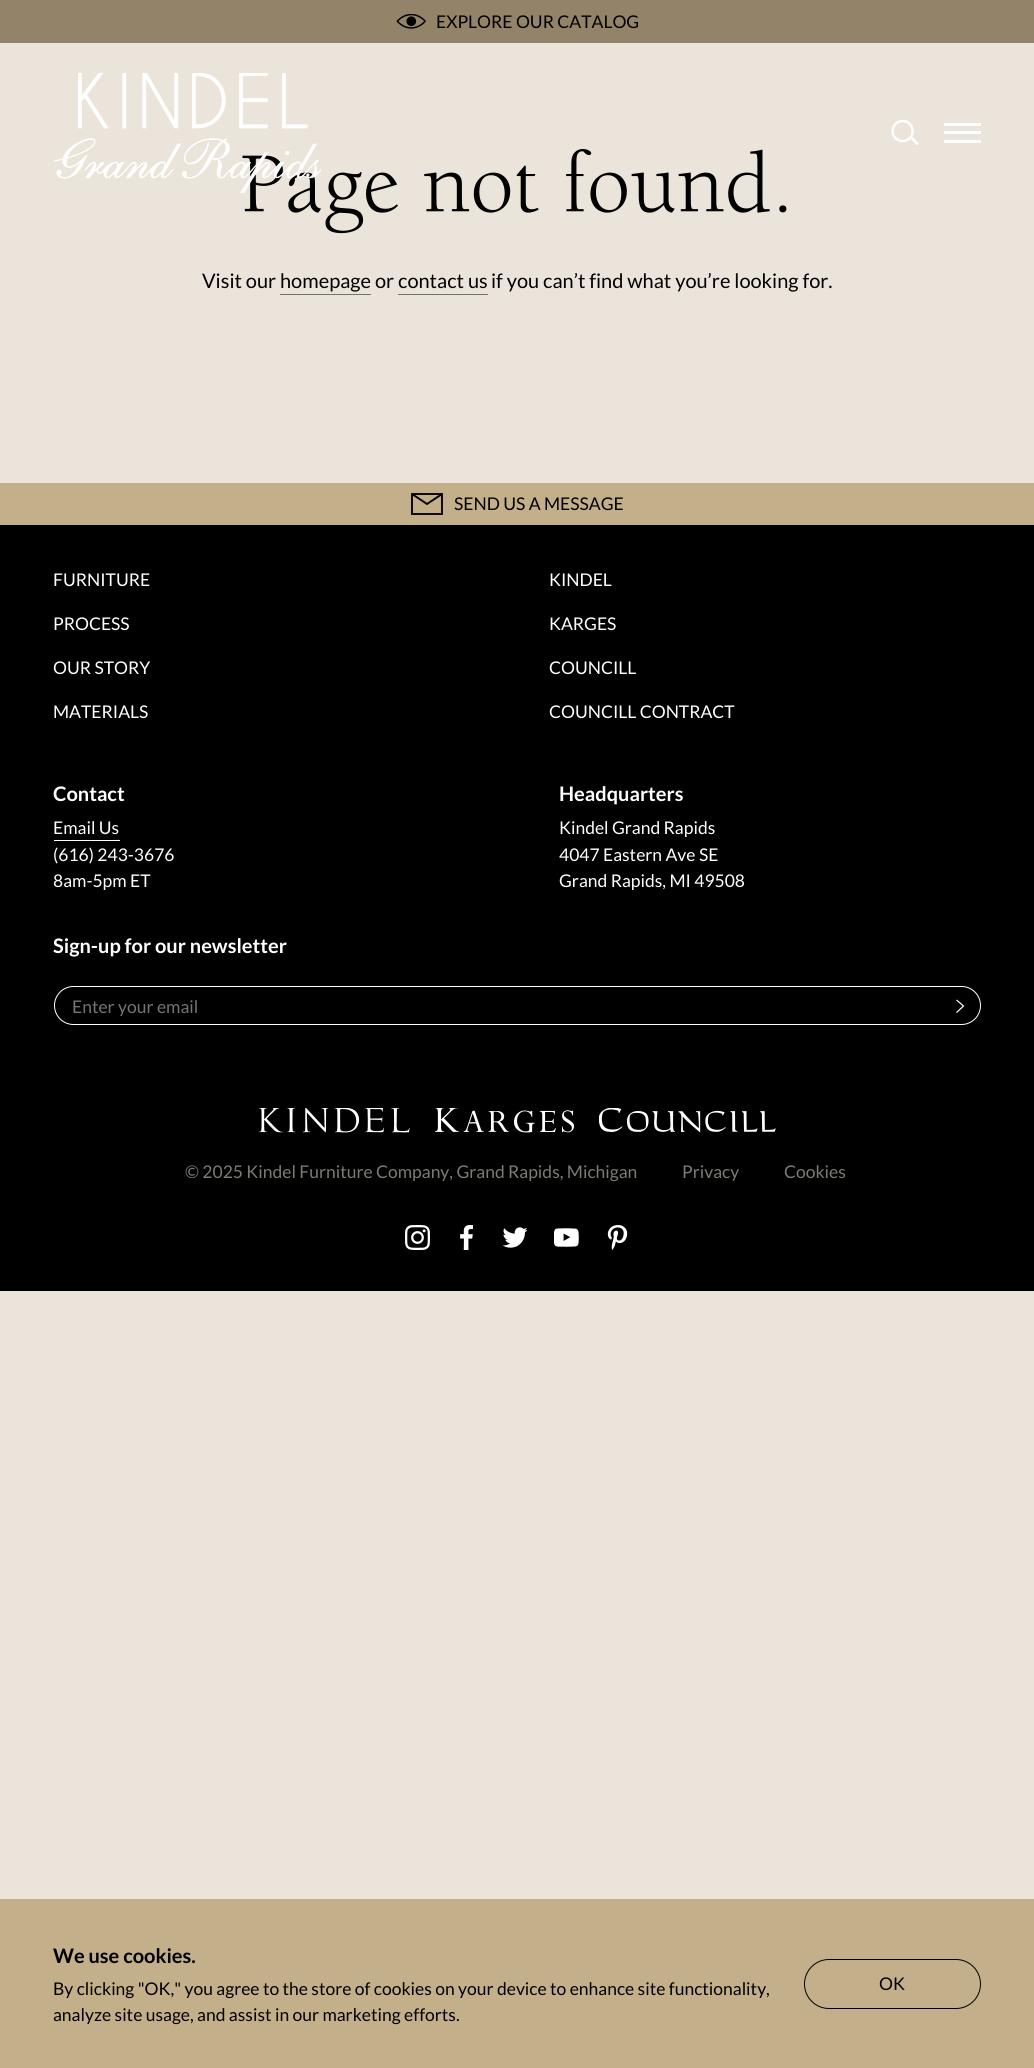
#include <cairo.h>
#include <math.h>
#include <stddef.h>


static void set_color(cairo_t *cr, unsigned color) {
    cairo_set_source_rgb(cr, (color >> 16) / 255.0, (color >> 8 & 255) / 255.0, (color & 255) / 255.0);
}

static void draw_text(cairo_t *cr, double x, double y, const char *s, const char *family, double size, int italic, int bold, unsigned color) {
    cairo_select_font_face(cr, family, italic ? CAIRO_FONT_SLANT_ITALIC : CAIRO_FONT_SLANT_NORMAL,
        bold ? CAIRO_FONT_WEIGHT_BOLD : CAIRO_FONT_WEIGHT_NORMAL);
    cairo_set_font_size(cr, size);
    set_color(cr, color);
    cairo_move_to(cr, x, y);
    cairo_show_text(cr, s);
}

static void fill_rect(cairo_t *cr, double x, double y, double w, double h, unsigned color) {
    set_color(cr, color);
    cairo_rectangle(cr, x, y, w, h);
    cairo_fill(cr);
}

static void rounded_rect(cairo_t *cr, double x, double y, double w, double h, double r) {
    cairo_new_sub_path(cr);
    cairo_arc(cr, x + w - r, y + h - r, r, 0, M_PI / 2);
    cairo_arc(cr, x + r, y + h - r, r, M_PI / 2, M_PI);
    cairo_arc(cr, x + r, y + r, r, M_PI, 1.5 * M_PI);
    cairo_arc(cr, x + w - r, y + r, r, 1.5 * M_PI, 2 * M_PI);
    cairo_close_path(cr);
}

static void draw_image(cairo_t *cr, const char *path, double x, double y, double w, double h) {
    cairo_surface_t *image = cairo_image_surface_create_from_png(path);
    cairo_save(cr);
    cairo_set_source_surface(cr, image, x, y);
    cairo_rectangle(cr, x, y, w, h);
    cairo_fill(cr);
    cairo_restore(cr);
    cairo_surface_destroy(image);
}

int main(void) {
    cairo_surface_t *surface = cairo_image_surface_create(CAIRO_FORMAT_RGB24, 1034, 2068);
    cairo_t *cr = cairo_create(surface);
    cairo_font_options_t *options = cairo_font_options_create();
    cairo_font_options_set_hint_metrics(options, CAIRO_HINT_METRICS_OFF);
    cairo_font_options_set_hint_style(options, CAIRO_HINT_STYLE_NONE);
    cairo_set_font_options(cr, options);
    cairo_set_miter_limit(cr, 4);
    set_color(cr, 0xEAE4DB);
    cairo_paint(cr);
    fill_rect(cr, 0, 0, 1034, 43, 0x938368);
    draw_image(cr, "assets/img1.png", 396, 14, 30, 15);
    draw_text(cr, 436, 28, "EXPLORE OUR CATALOG", "Lato", 17.5, 0, 0, 0x000000);
    draw_image(cr, "assets/img4.png", 242, 149, 545, 85);
    draw_image(cr, "assets/img2.png", 54, 73, 267, 120);
    draw_image(cr, "assets/img3.png", 891, 119, 28, 26);
    fill_rect(cr, 944, 123, 37, 3, 0xFFFFFF);
    fill_rect(cr, 944, 131, 37, 3, 0xFFFFFF);
    fill_rect(cr, 944, 140, 37, 3, 0xFFFFFF);
    draw_text(cr, 202, 288, "Visit our homepage", "Lato", 20, 0, 0, 0x000000);
    draw_text(cr, 375, 288, "or contact us", "Lato", 20, 0, 0, 0x000000);
    draw_text(cr, 491, 288, "if you can’t find what you’re looking for.", "Lato", 20, 0, 0, 0x000000);
    fill_rect(cr, 280, 294, 91, 1, 0x75726E);
    fill_rect(cr, 398, 294, 90, 1, 0x75726E);
    fill_rect(cr, 0, 525, 1034, 766, 0x000000);
    fill_rect(cr, 0, 483, 1034, 42, 0xC4AF8B);
    cairo_new_path(cr);
    cairo_move_to(cr, 412, 494);
    cairo_line_to(cr, 442, 494);
    cairo_line_to(cr, 442, 514);
    cairo_line_to(cr, 412, 514);
    cairo_close_path(cr);
    cairo_move_to(cr, 412, 494);
    cairo_line_to(cr, 427, 504);
    cairo_line_to(cr, 442, 494);
    set_color(cr, 0x000000);
    cairo_set_line_width(cr, 1.9);
    cairo_stroke(cr);
    draw_text(cr, 454, 510, "SEND US A MESSAGE", "Lato", 17.5, 0, 0, 0x000000);
    draw_text(cr, 53, 586, "FURNITURE", "Lato", 17.5, 0, 0, 0xFFFFFF);
    draw_text(cr, 549, 586, "KINDEL", "Lato", 17.5, 0, 0, 0xFFFFFF);
    draw_text(cr, 53, 630, "PROCESS", "Lato", 17.5, 0, 0, 0xFFFFFF);
    draw_text(cr, 549, 630, "KARGES", "Lato", 17.5, 0, 0, 0xFFFFFF);
    draw_text(cr, 53, 674, "OUR STORY", "Lato", 17.5, 0, 0, 0xFFFFFF);
    draw_text(cr, 549, 674, "COUNCILL", "Lato", 17.5, 0, 0, 0xFFFFFF);
    draw_text(cr, 53, 718, "MATERIALS", "Lato", 17.5, 0, 0, 0xFFFFFF);
    draw_text(cr, 549, 718, "COUNCILL CONTRACT", "Lato", 17.5, 0, 0, 0xFFFFFF);
    draw_text(cr, 53, 801, "Contact", "Lato", 20, 0, 1, 0xFFFFFF);
    draw_text(cr, 53, 834, "Email Us", "Lato", 17.5, 0, 0, 0xFFFFFF);
    fill_rect(cr, 54, 840, 66, 1, 0xFFFFFF);
    draw_text(cr, 53, 861, "(616) 243-3676", "Lato", 17.5, 0, 0, 0xFFFFFF);
    draw_text(cr, 53, 887, "8am-5pm ET", "Lato", 17.5, 0, 0, 0xFFFFFF);
    draw_text(cr, 559, 801, "Headquarters", "Lato", 20, 0, 1, 0xFFFFFF);
    draw_text(cr, 559, 834, "Kindel Grand Rapids", "Lato", 17.5, 0, 0, 0xFFFFFF);
    draw_text(cr, 559, 861, "4047 Eastern Ave SE", "Lato", 17.5, 0, 0, 0xFFFFFF);
    draw_text(cr, 559, 887, "Grand Rapids, MI 49508", "Lato", 17.5, 0, 0, 0xFFFFFF);
    draw_text(cr, 53, 953, "Sign-up for our newsletter", "Lato", 20, 0, 1, 0xFFFFFF);
    cairo_new_path(cr);
    cairo_move_to(cr, 956.5, 1000);
    cairo_line_to(cr, 963.5, 1006);
    cairo_line_to(cr, 956.5, 1012.5);
    cairo_set_line_width(cr, 1.2);
    cairo_stroke(cr);
    rounded_rect(cr, 54.5, 986.5, 926, 38, 19);
    cairo_set_line_width(cr, 1);
    cairo_stroke(cr);
    draw_text(cr, 72, 1013, "Enter your email", "Lato", 17.5, 0, 0, 0x757575);
    draw_image(cr, "assets/img5.png", 259, 1108, 151, 25);
    draw_image(cr, "assets/img6.png", 435, 1108, 139, 25);
    draw_image(cr, "assets/img7.png", 599, 1108, 177, 25);
    draw_text(cr, 185, 1178, "© 2025 Kindel Furniture Company, Grand Rapids, Michigan", "Lato", 17.5, 0, 0, 0x7B7C75);
    draw_text(cr, 682, 1178, "Privacy", "Lato", 17.5, 0, 0, 0x7B7C75);
    draw_text(cr, 784, 1178, "Cookies", "Lato", 17.5, 0, 0, 0x7B7C75);
    draw_image(cr, "assets/img8.png", 405, 1225, 25, 25);
    draw_image(cr, "assets/img9.png", 460, 1225, 13, 25);
    draw_image(cr, "assets/img10.png", 503, 1227, 25, 21);
    draw_image(cr, "assets/img11.png", 554, 1228, 25, 19);
    draw_image(cr, "assets/img12.png", 607, 1225, 21, 25);
    fill_rect(cr, 0, 1899, 1034, 169, 0xC4AF8B);
    draw_text(cr, 53, 1963, "We use cookies.", "Lato", 20, 0, 1, 0x000000);
    draw_text(cr, 53, 1995, "By clicking \"OK,\" you agree to the store of cookies on your device to enhance site functionality,", "Lato", 17.5, 0, 0, 0x000000);
    draw_text(cr, 53, 2021, "analyze site usage, and assist in our marketing efforts.", "Lato", 17.5, 0, 0, 0x000000);
    rounded_rect(cr, 804.5, 1959.5, 176, 49, 24.5);
    cairo_stroke(cr);
    draw_text(cr, 879, 1990, "OK", "Lato", 17.5, 0, 0, 0x000000);
    cairo_surface_write_to_png(surface, "output.png");
    cairo_font_options_destroy(options);
    cairo_destroy(cr);
    cairo_surface_destroy(surface);
    return 0;
}
